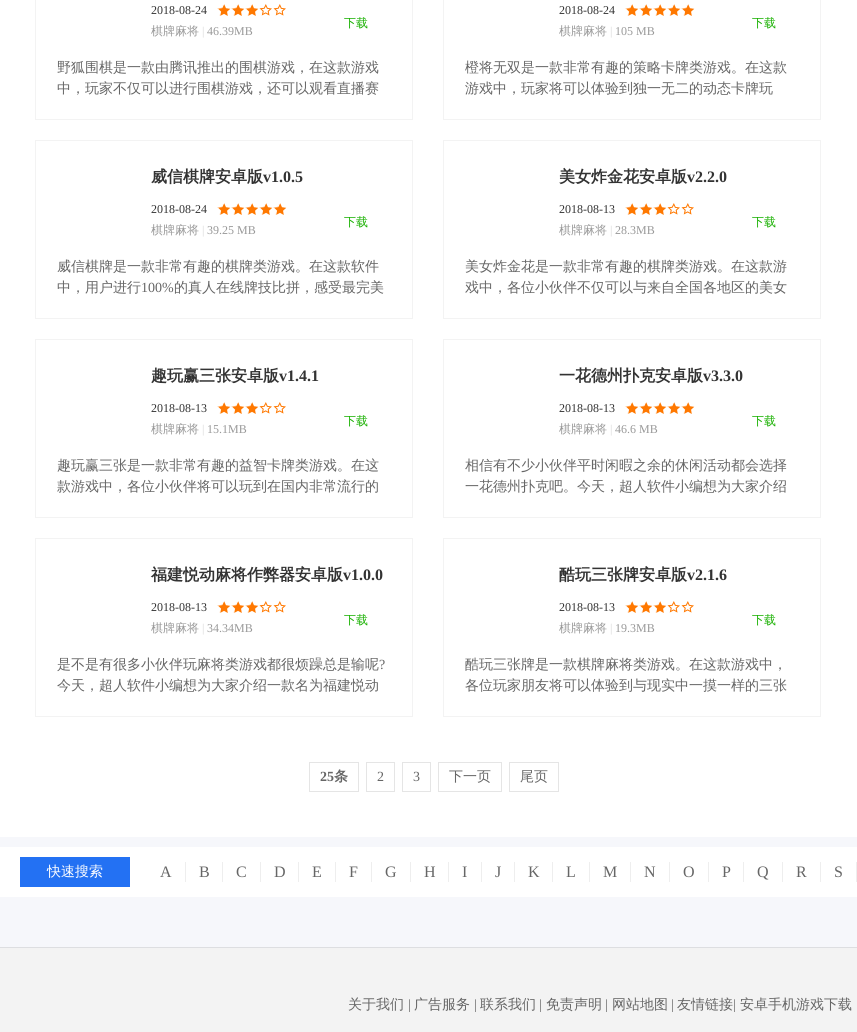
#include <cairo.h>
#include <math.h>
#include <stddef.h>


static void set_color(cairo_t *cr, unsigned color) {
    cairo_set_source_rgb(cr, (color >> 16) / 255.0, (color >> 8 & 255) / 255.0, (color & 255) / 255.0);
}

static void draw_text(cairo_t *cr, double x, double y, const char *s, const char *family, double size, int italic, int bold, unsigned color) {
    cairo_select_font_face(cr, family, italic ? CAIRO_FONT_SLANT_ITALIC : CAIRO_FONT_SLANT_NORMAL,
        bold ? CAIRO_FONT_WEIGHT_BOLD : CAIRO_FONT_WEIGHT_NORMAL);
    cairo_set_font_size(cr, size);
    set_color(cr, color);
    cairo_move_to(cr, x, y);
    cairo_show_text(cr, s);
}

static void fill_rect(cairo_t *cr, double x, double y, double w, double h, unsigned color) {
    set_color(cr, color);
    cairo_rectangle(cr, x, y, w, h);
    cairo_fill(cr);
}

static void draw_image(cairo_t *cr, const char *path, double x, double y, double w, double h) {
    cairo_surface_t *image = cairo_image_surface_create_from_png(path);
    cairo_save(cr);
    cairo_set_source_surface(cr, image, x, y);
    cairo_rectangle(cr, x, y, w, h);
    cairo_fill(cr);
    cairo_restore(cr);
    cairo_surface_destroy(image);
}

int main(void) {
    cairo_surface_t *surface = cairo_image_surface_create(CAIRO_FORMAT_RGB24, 857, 1032);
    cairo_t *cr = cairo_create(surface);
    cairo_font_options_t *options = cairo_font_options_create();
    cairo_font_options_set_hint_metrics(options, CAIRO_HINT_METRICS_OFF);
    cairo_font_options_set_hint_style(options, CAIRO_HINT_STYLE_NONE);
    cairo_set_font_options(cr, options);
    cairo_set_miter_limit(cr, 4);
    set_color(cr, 0xF6F7FB);
    cairo_paint(cr);
    fill_rect(cr, 0, 0, 857, 837, 0xFFFFFF);
    cairo_rectangle(cr, 35.5, -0.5, 377, 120);
    set_color(cr, 0xF3F3F3);
    cairo_set_line_width(cr, 1);
    cairo_stroke(cr);
    draw_text(cr, 151, 14, "2018-08-24", "Liberation Serif", 12, 0, 0, 0x333333);
    draw_image(cr, "assets/img1.png", 217, 4, 69, 12);
    draw_image(cr, "assets/img2.png", 218, 4, 41, 12);
    draw_text(cr, 151, 35, "棋牌麻将", "WenQuanYi Zen Hei Medium", 12, 0, 0, 0x999999);
    draw_text(cr, 202, 35, "|", "Liberation Serif", 12, 0, 0, 0xD9D9D9);
    draw_text(cr, 207, 35, "46.39MB", "Liberation Serif", 12, 0, 0, 0x999999);
    draw_text(cr, 344, 27, "下载", "WenQuanYi Zen Hei Medium", 12, 0, 0, 0x18B000);
    draw_text(cr, 57, 72, "野狐围棋是一款由腾讯推出的围棋游戏，在这款游戏", "WenQuanYi Zen Hei Medium", 14, 0, 0, 0x666666);
    draw_text(cr, 57, 93, "中，玩家不仅可以进行围棋游戏，还可以观看直播赛", "WenQuanYi Zen Hei Medium", 14, 0, 0, 0x666666);
    cairo_rectangle(cr, 443.5, -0.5, 377, 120);
    set_color(cr, 0xF3F3F3);
    cairo_stroke(cr);
    draw_text(cr, 559, 14, "2018-08-24", "Liberation Serif", 12, 0, 0, 0x333333);
    draw_image(cr, "assets/img3.png", 625, 5, 62, 11);
    draw_image(cr, "assets/img4.png", 626, 4, 69, 12);
    draw_text(cr, 559, 35, "棋牌麻将", "WenQuanYi Zen Hei Medium", 12, 0, 0, 0x999999);
    draw_text(cr, 610, 35, "|", "Liberation Serif", 12, 0, 0, 0xD9D9D9);
    draw_text(cr, 615, 35, "105 MB", "Liberation Serif", 12, 0, 0, 0x999999);
    draw_text(cr, 752, 27, "下载", "WenQuanYi Zen Hei Medium", 12, 0, 0, 0x18B000);
    draw_text(cr, 465, 72, "橙将无双是一款非常有趣的策略卡牌类游戏。在这款", "WenQuanYi Zen Hei Medium", 14, 0, 0, 0x666666);
    draw_text(cr, 465, 93, "游戏中，玩家将可以体验到独一无二的动态卡牌玩", "WenQuanYi Zen Hei Medium", 14, 0, 0, 0x666666);
    cairo_rectangle(cr, 35.5, 140.5, 377, 178);
    set_color(cr, 0xF3F3F3);
    cairo_stroke(cr);
    draw_text(cr, 151, 182, "威信棋牌安卓版", "WenQuanYi Zen Hei", 16, 0, 1, 0x333333);
    draw_text(cr, 263, 182, "v1.0.5", "Liberation Serif", 16, 0, 1, 0x333333);
    draw_text(cr, 151, 213, "2018-08-24", "Liberation Serif", 12, 0, 0, 0x333333);
    draw_image(cr, "assets/img3.png", 217, 204, 62, 11);
    draw_image(cr, "assets/img4.png", 218, 203, 69, 12);
    draw_text(cr, 151, 234, "棋牌麻将", "WenQuanYi Zen Hei Medium", 12, 0, 0, 0x999999);
    draw_text(cr, 202, 234, "|", "Liberation Serif", 12, 0, 0, 0xD9D9D9);
    draw_text(cr, 207, 234, "39.25 MB", "Liberation Serif", 12, 0, 0, 0x999999);
    draw_text(cr, 344, 226, "下载", "WenQuanYi Zen Hei Medium", 12, 0, 0, 0x18B000);
    draw_text(cr, 57, 271, "威信棋牌是一款非常有趣的棋牌类游戏。在这款软件", "WenQuanYi Zen Hei Medium", 14, 0, 0, 0x666666);
    draw_text(cr, 57, 292, "中，用户进行", "WenQuanYi Zen Hei Medium", 14, 0, 0, 0x666666);
    draw_text(cr, 141, 292, "100%", "Liberation Serif", 14, 0, 0, 0x666666);
    draw_text(cr, 174, 292, "的真人在线牌技比拼，感受最完美", "WenQuanYi Zen Hei Medium", 14, 0, 0, 0x666666);
    cairo_rectangle(cr, 443.5, 140.5, 377, 178);
    set_color(cr, 0xF3F3F3);
    cairo_stroke(cr);
    draw_text(cr, 559, 182, "美女炸金花安卓版", "WenQuanYi Zen Hei", 16, 0, 1, 0x333333);
    draw_text(cr, 687, 182, "v2.2.0", "Liberation Serif", 16, 0, 1, 0x333333);
    draw_text(cr, 559, 213, "2018-08-13", "Liberation Serif", 12, 0, 0, 0x333333);
    draw_image(cr, "assets/img1.png", 625, 203, 69, 12);
    draw_image(cr, "assets/img2.png", 626, 203, 41, 12);
    draw_text(cr, 559, 234, "棋牌麻将", "WenQuanYi Zen Hei Medium", 12, 0, 0, 0x999999);
    draw_text(cr, 610, 234, "|", "Liberation Serif", 12, 0, 0, 0xD9D9D9);
    draw_text(cr, 615, 234, "28.3MB", "Liberation Serif", 12, 0, 0, 0x999999);
    draw_text(cr, 752, 226, "下载", "WenQuanYi Zen Hei Medium", 12, 0, 0, 0x18B000);
    draw_text(cr, 465, 271, "美女炸金花是一款非常有趣的棋牌类游戏。在这款游", "WenQuanYi Zen Hei Medium", 14, 0, 0, 0x666666);
    draw_text(cr, 465, 292, "戏中，各位小伙伴不仅可以与来自全国各地区的美女", "WenQuanYi Zen Hei Medium", 14, 0, 0, 0x666666);
    cairo_rectangle(cr, 35.5, 339.5, 377, 178);
    set_color(cr, 0xF3F3F3);
    cairo_stroke(cr);
    draw_text(cr, 151, 381, "趣玩赢三张安卓版", "WenQuanYi Zen Hei", 16, 0, 1, 0x333333);
    draw_text(cr, 279, 381, "v1.4.1", "Liberation Serif", 16, 0, 1, 0x333333);
    draw_text(cr, 151, 412, "2018-08-13", "Liberation Serif", 12, 0, 0, 0x333333);
    draw_image(cr, "assets/img1.png", 217, 402, 69, 12);
    draw_image(cr, "assets/img2.png", 218, 402, 41, 12);
    draw_text(cr, 151, 433, "棋牌麻将", "WenQuanYi Zen Hei Medium", 12, 0, 0, 0x999999);
    draw_text(cr, 202, 433, "|", "Liberation Serif", 12, 0, 0, 0xD9D9D9);
    draw_text(cr, 207, 433, "15.1MB", "Liberation Serif", 12, 0, 0, 0x999999);
    draw_text(cr, 344, 425, "下载", "WenQuanYi Zen Hei Medium", 12, 0, 0, 0x18B000);
    draw_text(cr, 57, 470, "趣玩赢三张是一款非常有趣的益智卡牌类游戏。在这", "WenQuanYi Zen Hei Medium", 14, 0, 0, 0x666666);
    draw_text(cr, 57, 491, "款游戏中，各位小伙伴将可以玩到在国内非常流行的", "WenQuanYi Zen Hei Medium", 14, 0, 0, 0x666666);
    cairo_rectangle(cr, 443.5, 339.5, 377, 178);
    set_color(cr, 0xF3F3F3);
    cairo_stroke(cr);
    draw_text(cr, 559, 381, "一花德州扑克安卓版", "WenQuanYi Zen Hei", 16, 0, 1, 0x333333);
    draw_text(cr, 703, 381, "v3.3.0", "Liberation Serif", 16, 0, 1, 0x333333);
    draw_text(cr, 559, 412, "2018-08-13", "Liberation Serif", 12, 0, 0, 0x333333);
    draw_image(cr, "assets/img3.png", 625, 403, 62, 11);
    draw_image(cr, "assets/img4.png", 626, 402, 69, 12);
    draw_text(cr, 559, 433, "棋牌麻将", "WenQuanYi Zen Hei Medium", 12, 0, 0, 0x999999);
    draw_text(cr, 610, 433, "|", "Liberation Serif", 12, 0, 0, 0xD9D9D9);
    draw_text(cr, 615, 433, "46.6 MB", "Liberation Serif", 12, 0, 0, 0x999999);
    draw_text(cr, 752, 425, "下载", "WenQuanYi Zen Hei Medium", 12, 0, 0, 0x18B000);
    draw_text(cr, 465, 470, "相信有不少小伙伴平时闲暇之余的休闲活动都会选择", "WenQuanYi Zen Hei Medium", 14, 0, 0, 0x666666);
    draw_text(cr, 465, 491, "一花德州扑克吧。今天，超人软件小编想为大家介绍", "WenQuanYi Zen Hei Medium", 14, 0, 0, 0x666666);
    cairo_rectangle(cr, 35.5, 538.5, 377, 178);
    set_color(cr, 0xF3F3F3);
    cairo_stroke(cr);
    draw_text(cr, 151, 580, "福建悦动麻将作弊器安卓版", "WenQuanYi Zen Hei", 16, 0, 1, 0x333333);
    draw_text(cr, 343, 580, "v1.0.0", "Liberation Serif", 16, 0, 1, 0x333333);
    draw_text(cr, 151, 611, "2018-08-13", "Liberation Serif", 12, 0, 0, 0x333333);
    draw_image(cr, "assets/img1.png", 217, 601, 69, 12);
    draw_image(cr, "assets/img2.png", 218, 601, 41, 12);
    draw_text(cr, 151, 632, "棋牌麻将", "WenQuanYi Zen Hei Medium", 12, 0, 0, 0x999999);
    draw_text(cr, 202, 632, "|", "Liberation Serif", 12, 0, 0, 0xD9D9D9);
    draw_text(cr, 207, 632, "34.34MB", "Liberation Serif", 12, 0, 0, 0x999999);
    draw_text(cr, 344, 624, "下载", "WenQuanYi Zen Hei Medium", 12, 0, 0, 0x18B000);
    draw_text(cr, 57, 669, "是不是有很多小伙伴玩麻将类游戏都很烦躁总是输呢", "WenQuanYi Zen Hei Medium", 14, 0, 0, 0x666666);
    draw_text(cr, 379, 669, "?", "Liberation Serif", 14, 0, 0, 0x666666);
    draw_text(cr, 57, 690, "今天，超人软件小编想为大家介绍一款名为福建悦动", "WenQuanYi Zen Hei Medium", 14, 0, 0, 0x666666);
    cairo_rectangle(cr, 443.5, 538.5, 377, 178);
    set_color(cr, 0xF3F3F3);
    cairo_stroke(cr);
    draw_text(cr, 559, 580, "酷玩三张牌安卓版", "WenQuanYi Zen Hei", 16, 0, 1, 0x333333);
    draw_text(cr, 687, 580, "v2.1.6", "Liberation Serif", 16, 0, 1, 0x333333);
    draw_text(cr, 559, 611, "2018-08-13", "Liberation Serif", 12, 0, 0, 0x333333);
    draw_image(cr, "assets/img1.png", 625, 601, 69, 12);
    draw_image(cr, "assets/img2.png", 626, 601, 41, 12);
    draw_text(cr, 559, 632, "棋牌麻将", "WenQuanYi Zen Hei Medium", 12, 0, 0, 0x999999);
    draw_text(cr, 610, 632, "|", "Liberation Serif", 12, 0, 0, 0xD9D9D9);
    draw_text(cr, 615, 632, "19.3MB", "Liberation Serif", 12, 0, 0, 0x999999);
    draw_text(cr, 752, 624, "下载", "WenQuanYi Zen Hei Medium", 12, 0, 0, 0x18B000);
    draw_text(cr, 465, 669, "酷玩三张牌是一款棋牌麻将类游戏。在这款游戏中，", "WenQuanYi Zen Hei Medium", 14, 0, 0, 0x666666);
    draw_text(cr, 465, 690, "各位玩家朋友将可以体验到与现实中一摸一样的三张", "WenQuanYi Zen Hei Medium", 14, 0, 0, 0x666666);
    cairo_rectangle(cr, 309.5, 762.5, 49, 29);
    set_color(cr, 0xE5E5E5);
    cairo_stroke(cr);
    draw_text(cr, 320, 781, "25", "Liberation Serif", 14, 0, 1, 0x666666);
    draw_text(cr, 334, 781, "条", "WenQuanYi Zen Hei", 14, 0, 1, 0x666666);
    cairo_rectangle(cr, 366.5, 762.5, 28, 29);
    set_color(cr, 0xE5E5E5);
    cairo_stroke(cr);
    draw_text(cr, 377, 781, "2", "Liberation Serif", 14, 0, 0, 0x666666);
    cairo_rectangle(cr, 402.5, 762.5, 28, 29);
    set_color(cr, 0xE5E5E5);
    cairo_stroke(cr);
    draw_text(cr, 413, 781, "3", "Liberation Serif", 14, 0, 0, 0x666666);
    cairo_rectangle(cr, 438.5, 762.5, 63, 29);
    set_color(cr, 0xE5E5E5);
    cairo_stroke(cr);
    draw_text(cr, 449, 781, "下一页", "WenQuanYi Zen Hei Medium", 14, 0, 0, 0x666666);
    cairo_rectangle(cr, 509.5, 762.5, 49, 29);
    set_color(cr, 0xE5E5E5);
    cairo_stroke(cr);
    draw_text(cr, 520, 781, "尾页", "WenQuanYi Zen Hei Medium", 14, 0, 0, 0x666666);
    fill_rect(cr, 0, 847, 857, 50, 0xFFFFFF);
    fill_rect(cr, 20, 857, 110, 30, 0x2371F3);
    draw_text(cr, 47, 876, "快速搜索", "WenQuanYi Zen Hei Medium", 14, 0, 0, 0xFFFFFF);
    draw_text(cr, 160, 877, "A", "Liberation Serif", 16, 0, 0, 0x666666);
    fill_rect(cr, 185, 862, 1, 20, 0xEEEEEE);
    draw_text(cr, 199, 877, "B", "Liberation Serif", 16, 0, 0, 0x666666);
    fill_rect(cr, 222, 862, 1, 20, 0xEEEEEE);
    draw_text(cr, 236, 877, "C", "Liberation Serif", 16, 0, 0, 0x666666);
    fill_rect(cr, 260, 862, 1, 20, 0xEEEEEE);
    draw_text(cr, 274, 877, "D", "Liberation Serif", 16, 0, 0, 0x666666);
    fill_rect(cr, 298, 862, 1, 20, 0xEEEEEE);
    draw_text(cr, 312, 877, "E", "Liberation Serif", 16, 0, 0, 0x666666);
    fill_rect(cr, 335, 862, 1, 20, 0xEEEEEE);
    draw_text(cr, 349, 877, "F", "Liberation Serif", 16, 0, 0, 0x666666);
    fill_rect(cr, 371, 862, 1, 20, 0xEEEEEE);
    draw_text(cr, 385, 877, "G", "Liberation Serif", 16, 0, 0, 0x666666);
    fill_rect(cr, 410, 862, 1, 20, 0xEEEEEE);
    draw_text(cr, 424, 877, "H", "Liberation Serif", 16, 0, 0, 0x666666);
    fill_rect(cr, 448, 862, 1, 20, 0xEEEEEE);
    draw_text(cr, 462, 877, "I", "Liberation Serif", 16, 0, 0, 0x666666);
    fill_rect(cr, 481, 862, 1, 20, 0xEEEEEE);
    draw_text(cr, 495, 877, "J", "Liberation Serif", 16, 0, 0, 0x666666);
    fill_rect(cr, 514, 862, 1, 20, 0xEEEEEE);
    draw_text(cr, 528, 877, "K", "Liberation Serif", 16, 0, 0, 0x666666);
    fill_rect(cr, 552, 862, 1, 20, 0xEEEEEE);
    draw_text(cr, 566, 877, "L", "Liberation Serif", 16, 0, 0, 0x666666);
    fill_rect(cr, 589, 862, 1, 20, 0xEEEEEE);
    draw_text(cr, 603, 877, "M", "Liberation Serif", 16, 0, 0, 0x666666);
    fill_rect(cr, 630, 862, 1, 20, 0xEEEEEE);
    draw_text(cr, 644, 877, "N", "Liberation Serif", 16, 0, 0, 0x666666);
    fill_rect(cr, 669, 862, 1, 20, 0xEEEEEE);
    draw_text(cr, 683, 877, "O", "Liberation Serif", 16, 0, 0, 0x666666);
    fill_rect(cr, 708, 862, 1, 20, 0xEEEEEE);
    draw_text(cr, 722, 877, "P", "Liberation Serif", 16, 0, 0, 0x666666);
    fill_rect(cr, 743, 862, 1, 20, 0xEEEEEE);
    draw_text(cr, 757, 877, "Q", "Liberation Serif", 16, 0, 0, 0x666666);
    fill_rect(cr, 782, 862, 1, 20, 0xEEEEEE);
    draw_text(cr, 796, 877, "R", "Liberation Serif", 16, 0, 0, 0x666666);
    fill_rect(cr, 820, 862, 1, 20, 0xEEEEEE);
    draw_text(cr, 834, 877, "S", "Liberation Serif", 16, 0, 0, 0x666666);
    fill_rect(cr, 856, 862, 1, 20, 0xEEEEEE);
    fill_rect(cr, 0, 948, 857, 84, 0xF3F3F3);
    fill_rect(cr, 0, 947, 857, 1, 0xDDDEE1);
    draw_text(cr, 348, 1009, "关于我们", "WenQuanYi Zen Hei Medium", 14, 0, 0, 0x666666);
    draw_text(cr, 408, 1009, "|", "Liberation Serif", 14, 0, 0, 0x666666);
    draw_text(cr, 414, 1009, "广告服务", "WenQuanYi Zen Hei Medium", 14, 0, 0, 0x666666);
    draw_text(cr, 474, 1009, "|", "Liberation Serif", 14, 0, 0, 0x666666);
    draw_text(cr, 480, 1009, "联系我们", "WenQuanYi Zen Hei Medium", 14, 0, 0, 0x666666);
    draw_text(cr, 539, 1009, "|", "Liberation Serif", 14, 0, 0, 0x666666);
    draw_text(cr, 546, 1009, "免责声明", "WenQuanYi Zen Hei Medium", 14, 0, 0, 0x666666);
    draw_text(cr, 605, 1009, "|", "Liberation Serif", 14, 0, 0, 0x666666);
    draw_text(cr, 612, 1009, "网站地图", "WenQuanYi Zen Hei Medium", 14, 0, 0, 0x666666);
    draw_text(cr, 671, 1009, "|", "Liberation Serif", 14, 0, 0, 0x666666);
    draw_text(cr, 677, 1009, "友情链接", "WenQuanYi Zen Hei Medium", 14, 0, 0, 0x666666);
    draw_text(cr, 733, 1009, "|", "Liberation Serif", 14, 0, 0, 0x666666);
    draw_text(cr, 740, 1009, "安卓手机游戏下载", "WenQuanYi Zen Hei Medium", 14, 0, 0, 0x666666);
    cairo_surface_write_to_png(surface, "output.png");
    cairo_font_options_destroy(options);
    cairo_destroy(cr);
    cairo_surface_destroy(surface);
    return 0;
}
